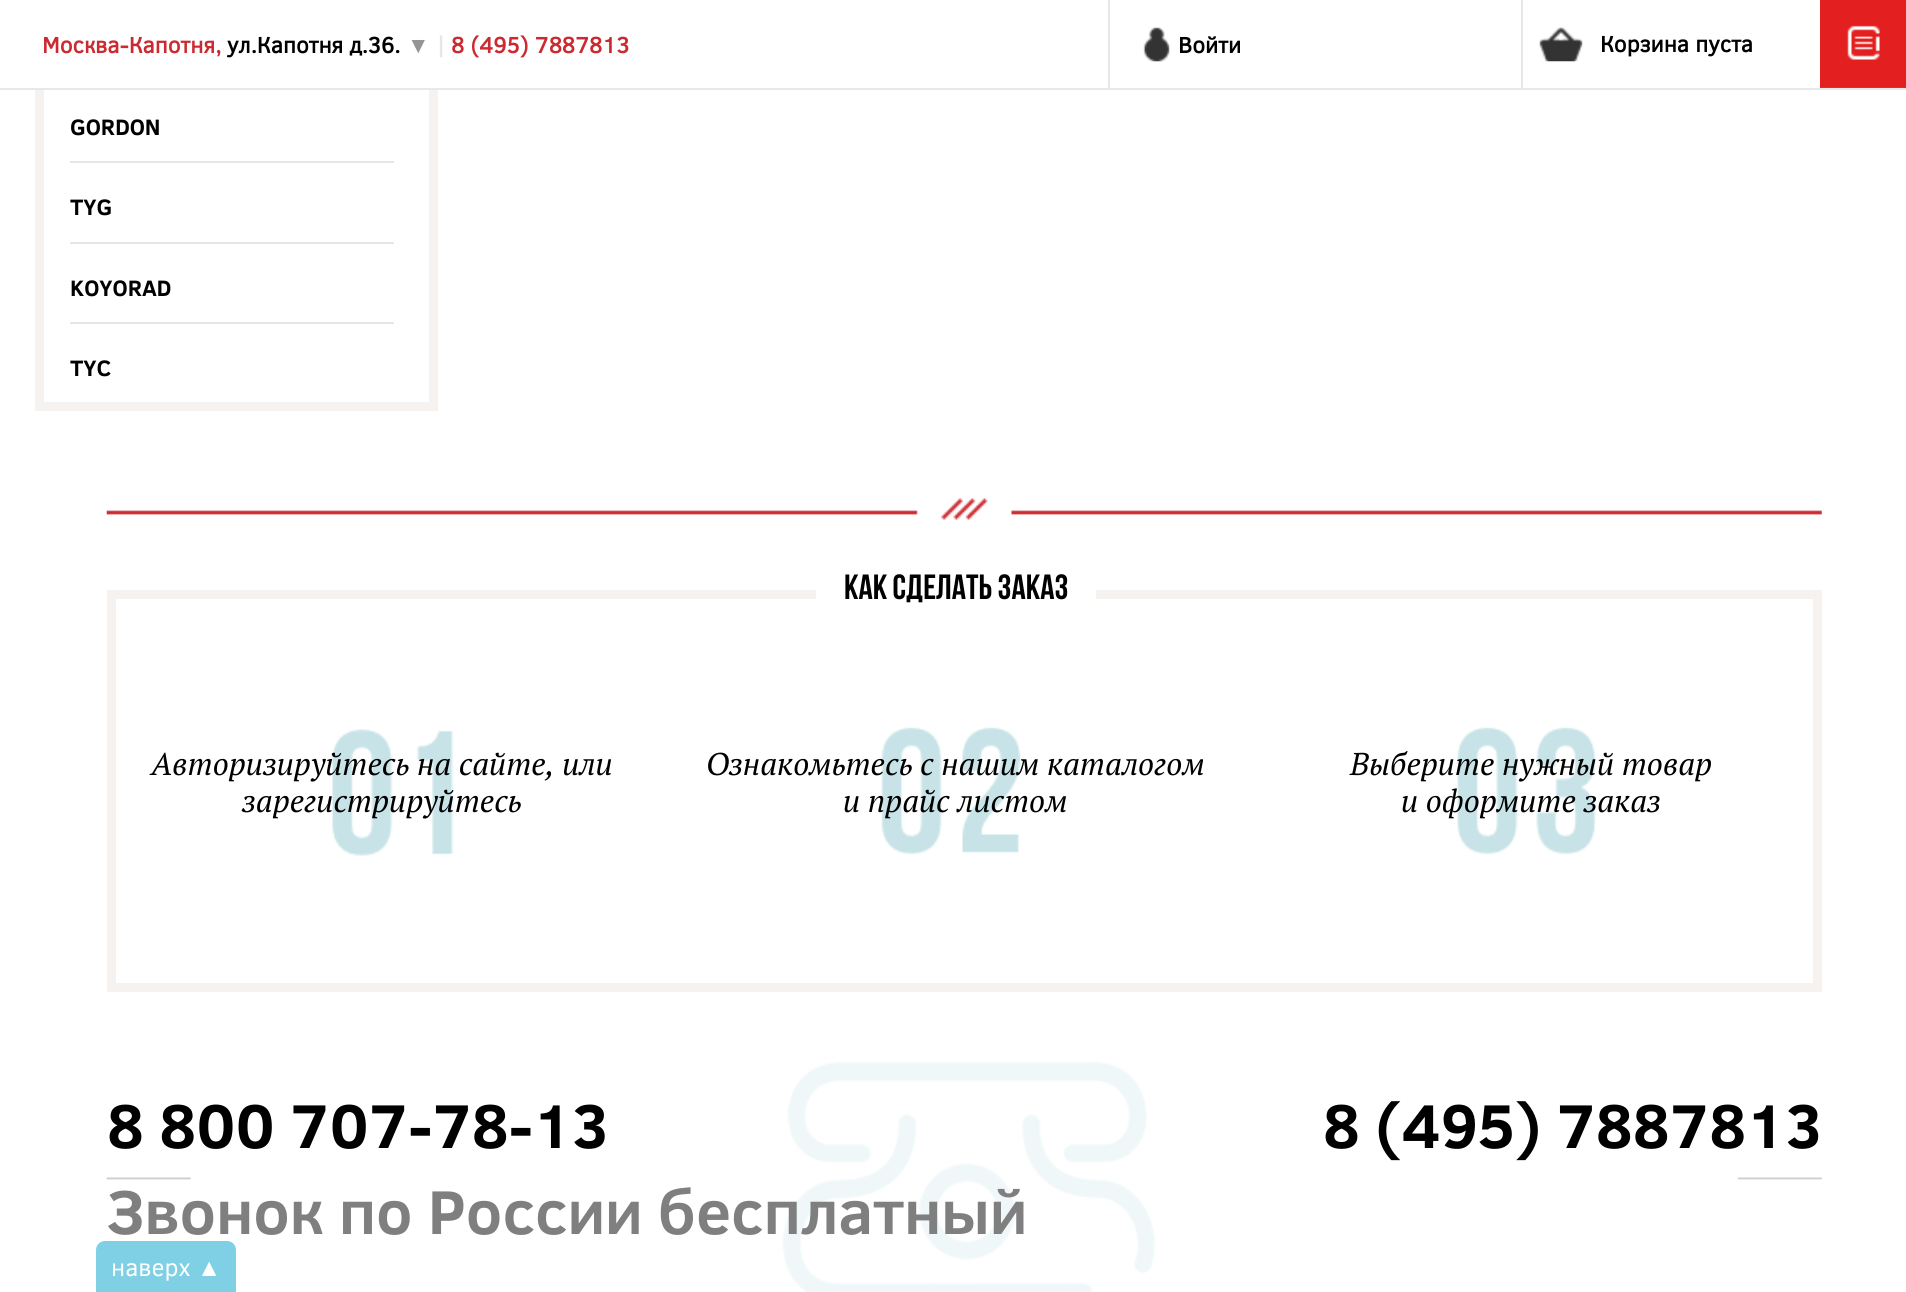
#include <cairo.h>
#include <math.h>
#include <stddef.h>


static void set_color(cairo_t *cr, unsigned color) {
    cairo_set_source_rgb(cr, (color >> 16) / 255.0, (color >> 8 & 255) / 255.0, (color & 255) / 255.0);
}

static void draw_text(cairo_t *cr, double x, double y, const char *s, const char *family, double size, int italic, int bold, unsigned color) {
    cairo_select_font_face(cr, family, italic ? CAIRO_FONT_SLANT_ITALIC : CAIRO_FONT_SLANT_NORMAL,
        bold ? CAIRO_FONT_WEIGHT_BOLD : CAIRO_FONT_WEIGHT_NORMAL);
    cairo_set_font_size(cr, size);
    set_color(cr, color);
    cairo_move_to(cr, x, y);
    cairo_show_text(cr, s);
}

static void fill_rect(cairo_t *cr, double x, double y, double w, double h, unsigned color) {
    set_color(cr, color);
    cairo_rectangle(cr, x, y, w, h);
    cairo_fill(cr);
}

static void draw_image(cairo_t *cr, const char *path, double x, double y, double w, double h) {
    cairo_surface_t *image = cairo_image_surface_create_from_png(path);
    cairo_save(cr);
    cairo_set_source_surface(cr, image, x, y);
    cairo_rectangle(cr, x, y, w, h);
    cairo_fill(cr);
    cairo_restore(cr);
    cairo_surface_destroy(image);
}

int main(void) {
    cairo_surface_t *surface = cairo_image_surface_create(CAIRO_FORMAT_RGB24, 1906, 1292);
    cairo_t *cr = cairo_create(surface);
    cairo_font_options_t *options = cairo_font_options_create();
    cairo_font_options_set_hint_metrics(options, CAIRO_HINT_METRICS_OFF);
    cairo_font_options_set_hint_style(options, CAIRO_HINT_STYLE_NONE);
    cairo_set_font_options(cr, options);
    cairo_set_miter_limit(cr, 4);
    set_color(cr, 0xFFFFFF);
    cairo_paint(cr);
    cairo_rectangle(cr, 39.5, -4.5, 394, 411);
    set_color(cr, 0xF6F2EF);
    cairo_set_line_width(cr, 9);
    cairo_stroke(cr);
    fill_rect(cr, 35, 0, 403, 88, 0xFFFFFF);
    fill_rect(cr, 0, 88, 1906, 2, 0xE8E8E8);
    draw_text(cr, 42, 53, "Москва-Капотня,", "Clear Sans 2", 22.75, 0, 1, 0xCC2A31);
    draw_text(cr, 227, 53, "ул.Капотня д.36.", "Clear Sans 2", 22.75, 0, 1, 0x000000);
    draw_text(cr, 407, 53, "▼", "Liberation Serif", 22.75, 0, 1, 0x959595);
    draw_text(cr, 436, 53, "|", "Clear Sans 2", 22.75, 0, 1, 0xE7E7E7);
    draw_text(cr, 451, 53, "8 (495) 7887813", "Clear Sans 2", 22.75, 0, 1, 0xCC2A31);
    fill_rect(cr, 1108, 0, 2, 88, 0xE7E7E7);
    draw_image(cr, "assets/img1.png", 1143, 27, 27, 35);
    draw_text(cr, 1178, 53, "Войти", "Clear Sans 2", 22.75, 0, 1, 0x000000);
    fill_rect(cr, 1521, 0, 2, 88, 0xE7E7E7);
    draw_image(cr, "assets/img2.png", 1539, 27, 44, 35);
    draw_text(cr, 1600, 52, "Корзина пуста", "Clear Sans 2", 22.75, 0, 1, 0x000000);
    fill_rect(cr, 1820, 87, 86, 1, 0xED252E);
    draw_image(cr, "assets/img3.png", 1820, 0, 86, 87);
    fill_rect(cr, 70, 161, 324, 2, 0xE6E6E6);
    draw_text(cr, 70, 135, "GORDON", "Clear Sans", 22.75, 0, 1, 0x000000);
    fill_rect(cr, 70, 242, 324, 2, 0xE6E6E6);
    draw_text(cr, 70, 215, "TYG", "Clear Sans", 22.75, 0, 1, 0x000000);
    fill_rect(cr, 70, 322, 324, 2, 0xE6E6E6);
    draw_text(cr, 70, 296, "KOYORAD", "Clear Sans", 22.75, 0, 1, 0x000000);
    draw_text(cr, 70, 376, "TYC", "Clear Sans", 22.75, 0, 1, 0x000000);
    draw_image(cr, "assets/img6.png", 106, 1062, 1716, 230);
    cairo_set_source_rgba(cr, 0, 0.639, 0.796, 0.5);
    cairo_new_path(cr);
    cairo_move_to(cr, 105, 1241);
    cairo_line_to(cr, 227, 1241);
    cairo_curve_to(cr, 232, 1241, 236, 1245, 236, 1250);
    cairo_line_to(cr, 236, 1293);
    cairo_line_to(cr, 96, 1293);
    cairo_line_to(cr, 96, 1250);
    cairo_curve_to(cr, 96, 1245, 100, 1241, 105, 1241);
    cairo_close_path(cr);
    cairo_fill(cr);
    draw_text(cr, 111, 1276, "наверх", "Clear Sans", 24.5, 0, 0, 0xFFFFFF);
    draw_text(cr, 197, 1276, "▲", "Liberation Serif", 24.5, 0, 0, 0xFFFFFF);
    draw_image(cr, "assets/img4.png", 106, 498, 1716, 22);
    draw_image(cr, "assets/img5.png", 332, 727, 1264, 129);
    cairo_rectangle(cr, 111.5, 594.5, 1706, 393);
    set_color(cr, 0xF6F2EF);
    cairo_stroke(cr);
    fill_rect(cr, 816, 590, 280, 9, 0xFFFFFF);
    draw_text(cr, 844, 599, "КАК СДЕЛАТЬ ЗАКАЗ", "Bebas Neue", 35, 0, 1, 0x000000);
    draw_text(cr, 151, 775, "Авторизируйтесь на сайте, или", "PT Serif", 31.5, 1, 0, 0x000000);
    draw_text(cr, 242, 812, "зарегистрируйтесь", "PT Serif", 31.5, 1, 0, 0x000000);
    draw_text(cr, 706, 775, "Ознакомьтесь с нашим каталогом", "PT Serif", 31.5, 1, 0, 0x000000);
    draw_text(cr, 843, 812, "и прайс листом", "PT Serif", 31.5, 1, 0, 0x000000);
    draw_text(cr, 1350, 775, "Выберите нужный товар", "PT Serif", 31.5, 1, 0, 0x000000);
    draw_text(cr, 1401, 812, "и оформите заказ", "PT Serif", 31.5, 1, 0, 0x000000);
    draw_text(cr, 107, 1148, "8 800 707-78-13", "Clear Sans", 63, 0, 1, 0x000000);
    draw_text(cr, 107, 1234, "Звонок по России бесплатный", "Clear Sans", 63, 0, 1, 0x7F7F7F);
    draw_text(cr, 1323, 1148, "8 (495) 7887813", "Clear Sans", 63, 0, 1, 0x000000);
    cairo_surface_write_to_png(surface, "output.png");
    cairo_font_options_destroy(options);
    cairo_destroy(cr);
    cairo_surface_destroy(surface);
    return 0;
}
